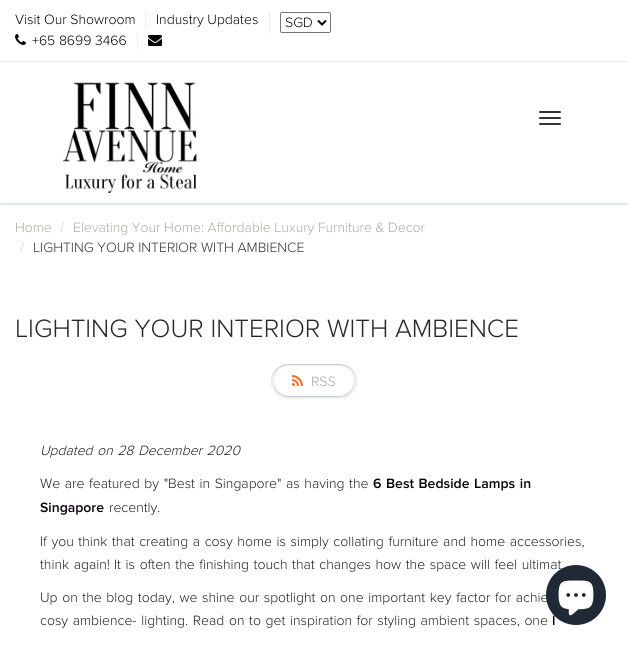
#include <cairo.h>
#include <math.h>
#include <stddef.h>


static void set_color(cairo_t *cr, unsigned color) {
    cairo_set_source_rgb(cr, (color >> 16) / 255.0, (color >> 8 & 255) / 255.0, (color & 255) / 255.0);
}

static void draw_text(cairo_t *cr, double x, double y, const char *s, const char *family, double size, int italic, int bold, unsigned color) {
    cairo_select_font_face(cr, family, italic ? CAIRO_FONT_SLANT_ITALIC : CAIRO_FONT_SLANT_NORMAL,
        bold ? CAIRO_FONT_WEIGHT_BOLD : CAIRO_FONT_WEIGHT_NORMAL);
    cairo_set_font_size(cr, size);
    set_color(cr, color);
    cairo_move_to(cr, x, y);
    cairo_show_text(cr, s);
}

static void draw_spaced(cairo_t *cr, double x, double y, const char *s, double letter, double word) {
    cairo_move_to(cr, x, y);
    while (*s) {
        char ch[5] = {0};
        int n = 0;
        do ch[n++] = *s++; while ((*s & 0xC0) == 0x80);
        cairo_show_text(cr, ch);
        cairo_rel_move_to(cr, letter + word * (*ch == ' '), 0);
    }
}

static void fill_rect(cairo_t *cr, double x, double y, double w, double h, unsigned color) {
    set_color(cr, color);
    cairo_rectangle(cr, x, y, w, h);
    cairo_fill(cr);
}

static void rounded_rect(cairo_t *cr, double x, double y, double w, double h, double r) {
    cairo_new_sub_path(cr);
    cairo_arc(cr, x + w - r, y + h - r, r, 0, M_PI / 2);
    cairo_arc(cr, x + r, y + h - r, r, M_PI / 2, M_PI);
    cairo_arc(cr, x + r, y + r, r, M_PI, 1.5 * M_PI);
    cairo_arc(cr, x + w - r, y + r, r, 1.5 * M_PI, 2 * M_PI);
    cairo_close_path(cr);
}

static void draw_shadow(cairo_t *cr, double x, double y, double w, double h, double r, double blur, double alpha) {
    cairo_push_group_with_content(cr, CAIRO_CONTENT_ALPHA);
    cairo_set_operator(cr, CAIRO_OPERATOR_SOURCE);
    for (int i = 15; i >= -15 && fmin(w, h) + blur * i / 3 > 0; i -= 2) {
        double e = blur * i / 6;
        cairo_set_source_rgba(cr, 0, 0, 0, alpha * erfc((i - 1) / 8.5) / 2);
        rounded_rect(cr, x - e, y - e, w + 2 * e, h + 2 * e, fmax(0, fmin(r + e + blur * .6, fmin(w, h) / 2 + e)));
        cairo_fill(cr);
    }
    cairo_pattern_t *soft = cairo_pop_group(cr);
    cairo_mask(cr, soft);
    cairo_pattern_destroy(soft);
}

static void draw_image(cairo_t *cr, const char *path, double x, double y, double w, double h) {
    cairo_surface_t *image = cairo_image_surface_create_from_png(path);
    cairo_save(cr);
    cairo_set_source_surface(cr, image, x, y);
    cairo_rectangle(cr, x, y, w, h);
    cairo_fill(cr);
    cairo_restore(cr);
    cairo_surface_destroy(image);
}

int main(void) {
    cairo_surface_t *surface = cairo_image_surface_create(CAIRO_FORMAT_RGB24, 628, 646);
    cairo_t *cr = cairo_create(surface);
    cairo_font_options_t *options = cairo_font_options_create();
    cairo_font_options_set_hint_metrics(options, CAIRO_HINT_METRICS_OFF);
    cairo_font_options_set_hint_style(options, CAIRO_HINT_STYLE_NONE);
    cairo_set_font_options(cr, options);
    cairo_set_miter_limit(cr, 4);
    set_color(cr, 0xFFFFFF);
    cairo_paint(cr);
    draw_text(cr, 15, 24, "Visit Our Showroom", "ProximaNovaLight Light", 14, 0, 0, 0x000000);
    fill_rect(cr, 145, 12, 1, 16, 0xEFECEC);
    draw_text(cr, 156, 24, "Industry Updates", "ProximaNovaLight Light", 14, 0, 0, 0x000000);
    fill_rect(cr, 269, 12, 1, 21, 0xEFECEC);
    rounded_rect(cr, 280.5, 12.5, 50, 20, 1.5);
    set_color(cr, 0x767676);
    cairo_set_line_width(cr, 1);
    cairo_stroke(cr);
    cairo_new_path(cr);
    cairo_move_to(cr, 318, 20.5);
    cairo_line_to(cr, 322, 24.5);
    cairo_line_to(cr, 326, 20.5);
    set_color(cr, 0x000000);
    cairo_set_line_width(cr, 2);
    cairo_stroke(cr);
    draw_text(cr, 285, 27, "SGD", "ProximaNovaLight Light", 14, 0, 0, 0x000000);
    draw_image(cr, "assets/img1.png", 15, 34, 11, 11);
    draw_text(cr, 32, 45, "+65 8699 3466", "ProximaNovaLight Light", 14, 0, 0, 0x000000);
    fill_rect(cr, 137, 33, 1, 16, 0xEFECEC);
    draw_image(cr, "assets/img2.png", 148, 35, 14, 11);
    cairo_save(cr);
    cairo_rectangle(cr, 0, 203, 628, 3);
    cairo_clip(cr);
    set_color(cr, 0x0B191C);
    draw_shadow(cr, 0, 63, 628, 142, 0, 1, 0.12);
    cairo_restore(cr);
    fill_rect(cr, 0, 61, 628, 1, 0xEFECEC);
    draw_image(cr, "assets/img3.png", 62, 82, 135, 111);
    set_color(cr, 0x333333);
    rounded_rect(cr, 539, 111, 22, 2, 1);
    cairo_fill(cr);
    rounded_rect(cr, 539, 117, 22, 2, 1);
    cairo_fill(cr);
    rounded_rect(cr, 539, 123, 22, 2, 1);
    cairo_fill(cr);
    draw_text(cr, 15, 232, "Home", "ProximaNovaLight Light", 14, 0, 0, 0xA9ABA8);
    draw_text(cr, 60, 232, "/", "ProximaNovaLight Light", 14, 0, 0, 0xCCCCCC);
    draw_text(cr, 73, 232, "Elevating Your Home: Affordable Luxury Furniture & Decor", "ProximaNovaLight Light", 14, 0, 0, 0xA9ABA8);
    draw_text(cr, 20, 252, "/", "ProximaNovaLight Light", 14, 0, 0, 0xCCCCCC);
    draw_text(cr, 33, 252, "LIGHTING YOUR INTERIOR WITH AMBIENCE", "ProximaNovaLight Light", 14, 0, 0, 0x333333);
    draw_text(cr, 15, 337, "LIGHTING YOUR INTERIOR WITH AMBIENCE", "ProximaNovaLight Light", 26, 0, 0, 0x282827);
    draw_image(cr, "assets/img4.png", 271, 364, 86, 35);
    draw_image(cr, "assets/img5.png", 292, 375, 11, 11);
    draw_text(cr, 311, 386, "RSS", "ProximaNovaLight Light", 14, 0, 0, 0xA9ABA8);
    cairo_select_font_face(cr, "ProximaNovaLight Light", CAIRO_FONT_SLANT_ITALIC, CAIRO_FONT_WEIGHT_NORMAL);
    set_color(cr, 0x1D1D1D);
    draw_spaced(cr, 40, 455, "Updated on 28 December 2020", 0, 1);
    cairo_select_font_face(cr, "ProximaNovaLight Light", CAIRO_FONT_SLANT_NORMAL, CAIRO_FONT_WEIGHT_NORMAL);
    draw_spaced(cr, 40, 488, "We are featured by \"Best in Singapore\" as having the", 0, 1);
    cairo_select_font_face(cr, "ProximaNovaLight SemiBold", CAIRO_FONT_SLANT_NORMAL, CAIRO_FONT_WEIGHT_NORMAL);
    set_color(cr, 0x050008);
    draw_spaced(cr, 373, 488, "6 Best Bedside Lamps in", 0, 1);
    draw_text(cr, 40, 512, "Singapore", "ProximaNovaLight SemiBold", 14, 0, 0, 0x050008);
    draw_text(cr, 109, 512, "recently.", "ProximaNovaLight Light", 14, 0, 0, 0x1D1D1D);
    draw_spaced(cr, 40, 546, "If you think that creating a cosy home is simply collating furniture and home accessories,", 0, 1);
    draw_spaced(cr, 40, 569, "think again!", 0, 1);
    draw_spaced(cr, 114, 569, "It is often the finishing touch that changes how the space will feel ultimat", 0, 1);
    draw_spaced(cr, 40, 602, "Up on the blog today, we shine our spotlight on one important key factor for achie", 0, 1);
    draw_spaced(cr, 40, 625, "cosy ambience- lighting. Read on to get inspiration for styling ambient spaces, one", 0, 1);
    draw_text(cr, 552, 625, "l", "ProximaNovaLight SemiBold", 14, 0, 0, 0x050008);
    set_color(cr, 0x202A36);
    cairo_new_path(cr);
    cairo_arc(cr, 576, 595, 30, 0, 2 * M_PI);
    cairo_fill(cr);
    draw_image(cr, "assets/img6.png", 558, 580, 36, 36);
    cairo_surface_write_to_png(surface, "output.png");
    cairo_font_options_destroy(options);
    cairo_destroy(cr);
    cairo_surface_destroy(surface);
    return 0;
}
